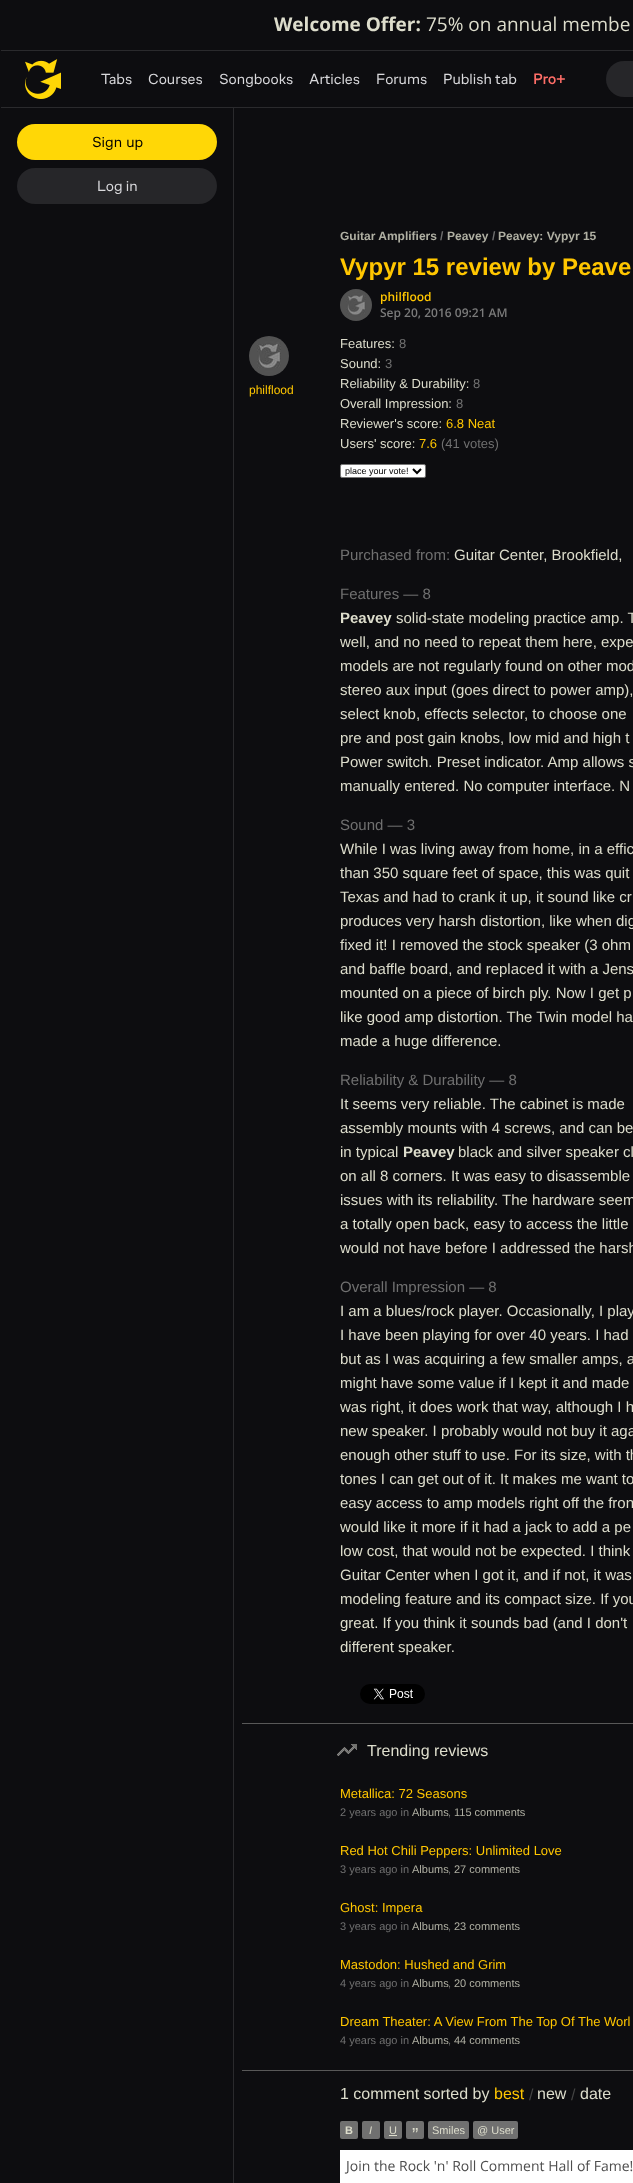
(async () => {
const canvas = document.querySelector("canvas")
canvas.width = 633
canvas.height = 2183
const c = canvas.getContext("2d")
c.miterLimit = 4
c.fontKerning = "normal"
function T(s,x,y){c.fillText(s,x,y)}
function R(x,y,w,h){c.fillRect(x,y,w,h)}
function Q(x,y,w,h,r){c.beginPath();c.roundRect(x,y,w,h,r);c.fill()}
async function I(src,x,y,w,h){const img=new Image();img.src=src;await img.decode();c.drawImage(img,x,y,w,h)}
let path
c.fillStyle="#0d0d10"
R(0,0,633,2183)
c.fillStyle="#2a2a2d"
R(1,50,632,1)
c.font="bold 19px Open Sans"
c.fillStyle="#ddc"
T("Welcome Offer:",274,31)
c.font="19px Open Sans"
T("75% on annual membe",426,31)
c.fillStyle="#2a2a2d"
R(1,107,632,1)
await I("1.png",25,59,36,40)
c.font="15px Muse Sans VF"
c.fillStyle="#d9d9dc"
T("Tabs",101,84)
T("Courses",148,84)
T("Songbooks",219,84)
T("Articles",309,84)
T("Forums",376,84)
T("Publish tab",443,84)
c.font="bold 15px Muse Sans VF"
c.fillStyle="#ff6e68"
T("Pro+",533,84)
c.fillStyle="#262629"
Q(606,61,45,36,18)
c.fillStyle="#ffd706"
Q(17,124,200,36,18)
c.wordSpacing="1px"
c.font="15px Muse Sans VF"
c.fillStyle="#000"
T("Sign up",92,147)
c.fillStyle="#262629"
Q(17,168,200,36,18)
c.wordSpacing="0px"
c.fillStyle="#d9d9dc"
T("Log in",97,191)
c.fillStyle="#2a2a2d"
R(233,108,1,2075)
c.font="bold 12px Liberation Sans"
c.fillStyle="#b0b0a3"
T("Guitar Amplifiers",340,240)
c.fillStyle="#707070"
T("/",440,240)
c.fillStyle="#b0b0a3"
T("Peavey",447,240)
c.fillStyle="#707070"
T("/",492,240)
c.fillStyle="#b0b0a3"
T("Peavey: Vypyr 15",498,240)
c.font="bold 24px Liberation Sans"
c.fillStyle="#ffc600"
T("Vypyr 15 review by Peave",340,275)
await I("2.png",340,289,32,32)
c.font="600 12px Open Sans"
T("philflood",380,301)
c.fillStyle="#7a7a7a"
T("Sep 20, 2016 09:21 AM",380,317)
await I("3.png",249,336,40,40)
c.font="12px Liberation Sans"
c.fillStyle="#ffc600"
T("philflood",249,394)
c.font="13px Liberation Sans"
c.fillStyle="#ddc"
T("Features:",340,348)
c.fillStyle="#707070"
T("8",399,348)
c.fillStyle="#ddc"
T("Sound:",340,368)
c.fillStyle="#707070"
T("3",385,368)
c.fillStyle="#ddc"
T("Reliability & Durability:",340,388)
c.fillStyle="#707070"
T("8",473,388)
c.fillStyle="#ddc"
T("Overall Impression:",340,408)
c.fillStyle="#707070"
T("8",456,408)
c.fillStyle="#ddc"
T("Reviewer's score:",340,428)
c.fillStyle="#ffc600"
T("6.8 Neat",446,428)
c.fillStyle="#ddc"
T("Users' score:",340,448)
c.fillStyle="#ffc600"
T("7.6",419,448)
c.fillStyle="#707070"
T("(41 votes)",441,448)
c.fillStyle="#fff"
c.beginPath()
c.roundRect(340.5,464.5,85,13,1.5)
c.fill()
c.strokeStyle="#767676"
c.stroke()
path = new Path2D("M413 469l4 4l4-4")
c.strokeStyle="#000"
c.lineWidth=2
c.stroke(path)
c.font="9px Liberation Sans"
c.fillStyle="#000"
T("place your vote!",345,474)
c.font="15px Liberation Sans"
c.fillStyle="#707070"
T("Purchased from:",340,560)
c.fillStyle="#ddc"
T("Guitar Center, Brookfield,",454,560)
c.fillStyle="#707070"
T("Features — 8",340,599)
c.font="bold 15px Liberation Sans"
c.fillStyle="#ddc"
T("Peavey",340,623)
c.font="15px Liberation Sans"
T("solid-state modeling practice amp. T",396,623)
T("well, and no need to repeat them here, expe",340,647)
T("models are not regularly found on other mod",340,671)
T("stereo aux input (goes direct to power amp),",340,695)
T("select knob, effects selector, to choose one",340,719)
T("pre and post gain knobs, low mid and high t",340,743)
T("Power switch. Preset indicator. Amp allows s",340,767)
T("manually entered. No computer interface. N",340,791)
c.fillStyle="#707070"
T("Sound — 3",340,830)
c.fillStyle="#ddc"
T("While I was living away from home, in a effic",340,854)
T("than 350 square feet of space, this was quit",340,878)
T("Texas and had to crank it up, it sound like cr",340,902)
T("produces very harsh distortion, like when dig",340,926)
T("fixed it! I removed the stock speaker (3 ohm",340,950)
T("and baffle board, and replaced it with a Jens",340,974)
T("mounted on a piece of birch ply. Now I get p",340,998)
T("like good amp distortion. The Twin model ha",340,1022)
T("made a huge difference.",340,1046)
c.fillStyle="#707070"
T("Reliability & Durability — 8",340,1085)
c.fillStyle="#ddc"
T("It seems very reliable. The cabinet is made",340,1109)
T("assembly mounts with 4 screws, and can be",340,1133)
T("in typical",340,1157)
c.font="bold 15px Liberation Sans"
T("Peavey",403,1157)
c.font="15px Liberation Sans"
T("black and silver speaker cl",458,1157)
T("on all 8 corners. It was easy to disassemble",340,1181)
T("issues with its reliability. The hardware seem",340,1205)
T("a totally open back, easy to access the little",340,1229)
T("would not have before I addressed the harsh",340,1253)
c.fillStyle="#707070"
T("Overall Impression — 8",340,1292)
c.fillStyle="#ddc"
T("I am a blues/rock player. Occasionally, I play",340,1316)
T("I have been playing for over 40 years. I had",340,1340)
T("but as I was acquiring a few smaller amps, a",340,1364)
T("might have some value if I kept it and made",340,1388)
T("was right, it does work that way, although I h",340,1412)
T("new speaker. I probably would not buy it aga",340,1436)
T("enough other stuff to use. For its size, with th",340,1460)
T("tones I can get out of it. It makes me want to",340,1484)
T("easy access to amp models right off the fron",340,1508)
T("would like it more if it had a jack to add a pe",340,1532)
T("low cost, that would not be expected. I think",340,1556)
T("Guitar Center when I got it, and if not, it was",340,1580)
T("modeling feature and its compact size. If you",340,1604)
T("great. If you think it sounds bad (and I don't",340,1628)
T("different speaker.",340,1652)
await I("4.png",360,1684,65,20)
c.fillStyle="#585858"
R(242,1723,391,1)
R(242,2070,391,1)
await I("5.png",337,1744,20,12)
c.font="16px Liberation Sans"
c.fillStyle="#ddc"
T("Trending reviews",367,1756)
c.font="13px Liberation Sans"
c.fillStyle="#ffc600"
T("Metallica: 72 Seasons",340,1798)
c.font="11px Liberation Sans"
c.fillStyle="#707070"
T("2 years ago in",340,1816)
c.fillStyle="#b0b0a3"
T("Albums",412,1816)
c.fillStyle="#707070"
T(",",448,1816)
c.fillStyle="#b0b0a3"
T("115 comments",454,1816)
c.font="13px Liberation Sans"
c.fillStyle="#ffc600"
T("Red Hot Chili Peppers: Unlimited Love",340,1855)
c.font="11px Liberation Sans"
c.fillStyle="#707070"
T("3 years ago in",340,1873)
c.fillStyle="#b0b0a3"
T("Albums",412,1873)
c.fillStyle="#707070"
T(",",448,1873)
c.fillStyle="#b0b0a3"
T("27 comments",454,1873)
c.font="13px Liberation Sans"
c.fillStyle="#ffc600"
T("Ghost: Impera",340,1912)
c.font="11px Liberation Sans"
c.fillStyle="#707070"
T("3 years ago in",340,1930)
c.fillStyle="#b0b0a3"
T("Albums",412,1930)
c.fillStyle="#707070"
T(",",448,1930)
c.fillStyle="#b0b0a3"
T("23 comments",454,1930)
c.font="13px Liberation Sans"
c.fillStyle="#ffc600"
T("Mastodon: Hushed and Grim",340,1969)
c.font="11px Liberation Sans"
c.fillStyle="#707070"
T("4 years ago in",340,1987)
c.fillStyle="#b0b0a3"
T("Albums",412,1987)
c.fillStyle="#707070"
T(",",448,1987)
c.fillStyle="#b0b0a3"
T("20 comments",454,1987)
c.font="13px Liberation Sans"
c.fillStyle="#ffc600"
T("Dream Theater: A View From The Top Of The Worl",340,2026)
c.font="11px Liberation Sans"
c.fillStyle="#707070"
T("4 years ago in",340,2044)
c.fillStyle="#b0b0a3"
T("Albums",412,2044)
c.fillStyle="#707070"
T(",",448,2044)
c.fillStyle="#b0b0a3"
T("44 comments",454,2044)
c.font="16px Liberation Sans"
c.fillStyle="#ddc"
T("1 comment sorted by",340,2099)
c.fillStyle="#ffc600"
T("best",494,2099)
c.fillStyle="#444"
T("/",529,2100)
c.fillStyle="#ddc"
T("new",537,2099)
c.fillStyle="#444"
T("/",571,2100)
c.fillStyle="#ddc"
T("date",580,2099)
c.fillStyle="#707070"
Q(340,2121,18,18,2)
c.font="bold 11px Liberation Sans"
c.fillStyle="#ddc"
T("B",345,2134)
c.fillStyle="#707070"
Q(362,2121,18,18,2)
c.font="italic 11px Liberation Sans"
c.fillStyle="#ddc"
T("I",369,2134)
c.fillStyle="#707070"
Q(384,2121,18,18,2)
c.font="11px Liberation Sans"
c.fillStyle="#ddc"
T("U",389,2134)
R(389,2135,8,1)
c.fillStyle="#707070"
Q(406,2121,18,18,2)
c.font="19px Liberation Sans"
c.fillStyle="#ddc"
T("”",412,2141)
c.fillStyle="#707070"
Q(428,2121,41,18,2)
c.font="11px Liberation Sans"
c.fillStyle="#ddc"
T("Smiles",432,2134)
c.fillStyle="#707070"
Q(473,2121,45,18,2)
c.fillStyle="#ddc"
T("@ User",477,2134)
c.fillStyle="#fff"
R(340,2150,293,33)
c.font="14px Open Sans"
c.fillStyle="#4d4d4d"
T("Join the Rock 'n' Roll Comment Hall of Fame!",346,2171)
})()
